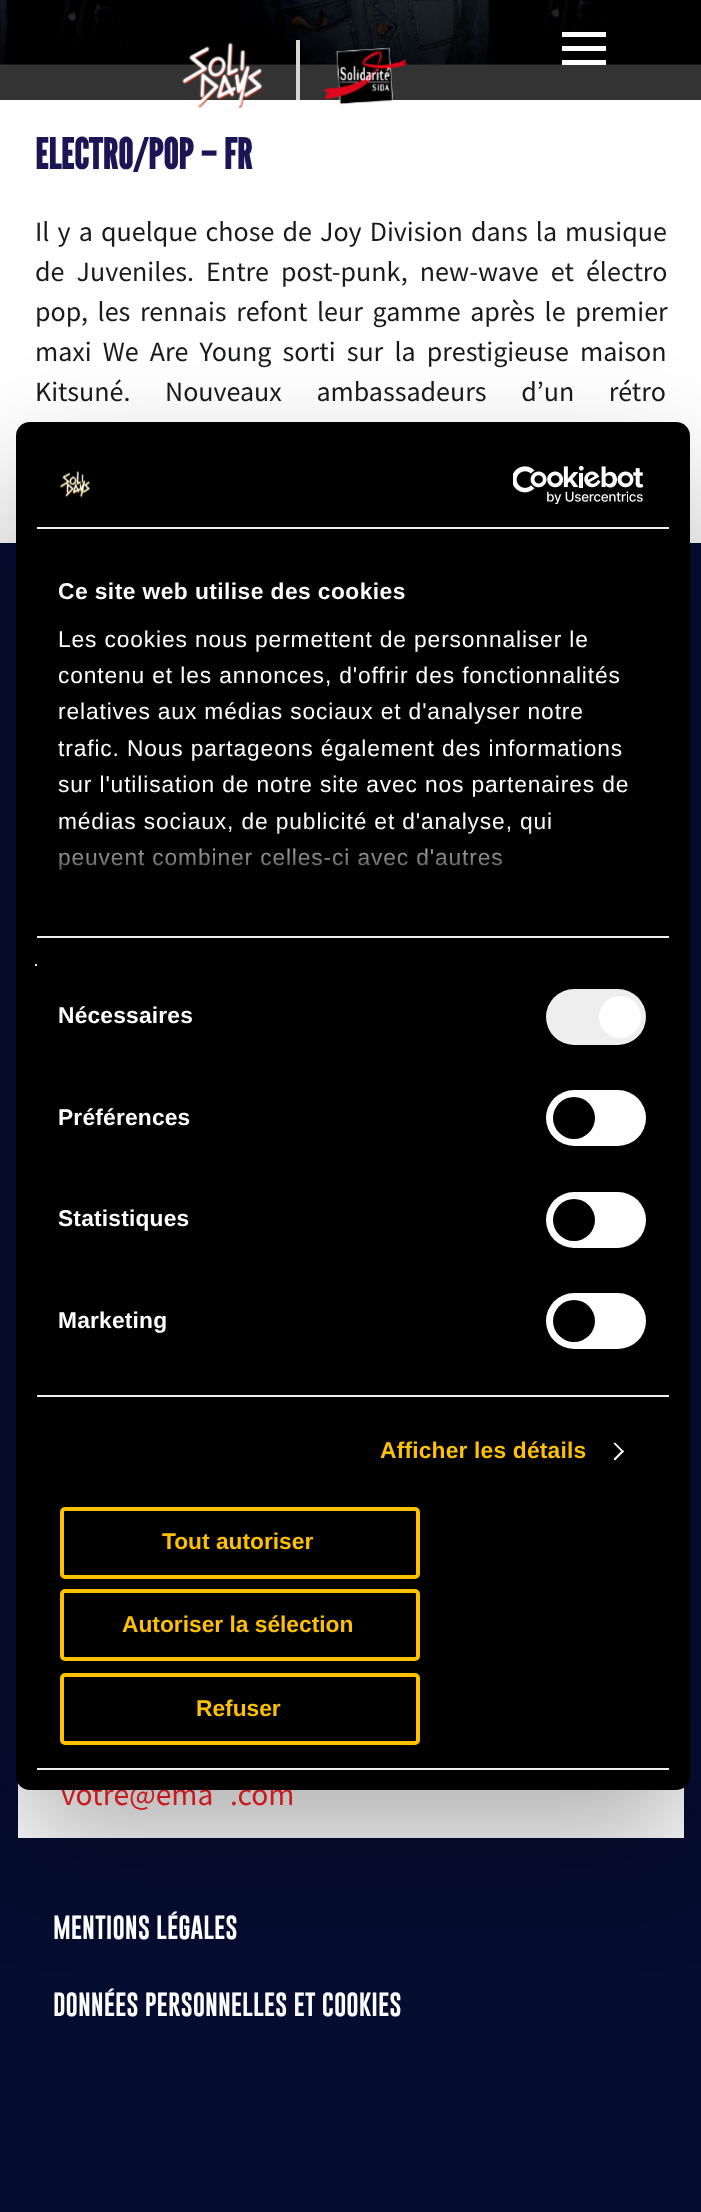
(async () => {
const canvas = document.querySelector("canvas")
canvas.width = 701
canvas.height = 2212
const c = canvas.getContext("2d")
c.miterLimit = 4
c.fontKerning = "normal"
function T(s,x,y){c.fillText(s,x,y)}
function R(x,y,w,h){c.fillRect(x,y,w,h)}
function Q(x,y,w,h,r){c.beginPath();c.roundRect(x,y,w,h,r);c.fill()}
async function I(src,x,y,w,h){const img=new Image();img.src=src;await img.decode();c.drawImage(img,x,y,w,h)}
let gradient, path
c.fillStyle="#fff"
R(0,0,701,2212)
c.fillStyle="#333"
R(0,64,701,36)
await I("3.png",0,0,701,65)
c.fillStyle="#d6d6d6"
R(296,40,4,60)
await I("1.png",182,42,81,67)
await I("2.png",322,47,87,58)
c.fillStyle="#fff"
R(562,46,44,5)
R(562,32,44,5)
R(562,60,44,5)
c.letterSpacing="0.3px"
c.font="bold 42px League Gothic"
c.fillStyle="#1d1456"
T("ELECTRO/POP – FR",35,169)
c.letterSpacing="0px"
c.wordSpacing="2.5px"
c.font="28px Source Sans Pro"
c.fillStyle="#191a1c"
T("Il y a quelque chose de Joy Division dans la musique",35,241)
c.wordSpacing="6.5px"
T("de Juveniles. Entre post-punk, new-wave et électro",35,281)
c.wordSpacing="4px"
T("pop, les rennais refont leur gamme après le premier",35,321)
c.wordSpacing="5.5px"
T("maxi We Are Young sorti sur la prestigieuse maison",35,361)
c.wordSpacing="29px"
T("Kitsuné. Nouveaux ambassadeurs d’un rétro",35,401)
gradient = c.createLinearGradient(351,-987,351,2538)
gradient.addColorStop(0,"#000")
gradient.addColorStop(.4,"#050d30")
gradient.addColorStop(.6,"#050d30")
c.fillStyle = gradient
R(0,543,701,1669)
c.fillStyle="#fff"
R(18,1783,666,55)
c.fillStyle="#0000004d"
c.filter="blur(59.5px)"
c.beginPath()
c.roundRect(16,478,674,1368,14)
c.fill()
c.filter="none"
c.wordSpacing="0px"
c.font="31.5px Source Sans Pro"
c.fillStyle="#c9191c"
T("votre@ema",61,1805)
T(".com",230,1805)
c.fillStyle="#000"
Q(16,422,674,1368,14)
c.fillStyle="#eee"
R(37,527,632,2)
await I("4.png",59,471,31,27)
await I("5.png",513,466,131,38)
R(37,936,632,2)
c.letterSpacing="0.45px"
c.font="bold 22.75px Liberation Sans"
c.fillStyle="#fff"
T("Ce site web utilise des cookies",58,599)
c.letterSpacing="0.88px"
c.font="22.75px Liberation Sans"
T("Les cookies nous permettent de personnaliser le",58,647)
T("contenu et les annonces, d'offrir des fonctionnalités",58,683)
T("relatives aux médias sociaux et d'analyser notre",58,719)
T("trafic. Nous partageons également des informations",58,756)
T("sur l'utilisation de notre site avec nos partenaires de",58,792)
T("médias sociaux, de publicité et d'analyse, qui",58,829)
T("peuvent combiner celles-ci avec d'autres",58,865)
gradient = c.createLinearGradient(342,937,342,823)
gradient.addColorStop(0,"#000")
gradient.addColorStop(.5,"#000000cc")
gradient.addColorStop(1,"#00000000")
c.fillStyle = gradient
R(59,825,492,45)
c.fillStyle="#eee"
R(37,1395,632,2)
c.fillStyle="#e5e5e5"
R(35,964,2,2)
c.letterSpacing="0.2px"
c.font="bold 22.75px Liberation Sans"
c.fillStyle="#fff"
T("Nécessaires",58,1023)
c.fillStyle="#eee"
Q(546,989,100,56,28)
c.fillStyle="#fff"
c.beginPath()
c.arc(620,1017,21,0,7)
c.fill()
T("Préférences",58,1125)
Q(546,1090,100,56,28)
c.fillStyle="#000"
c.beginPath()
c.arc(574,1118,21,0,7)
c.fill()
c.fillStyle="#fff"
T("Statistiques",58,1226)
Q(546,1192,100,56,28)
c.fillStyle="#000"
c.beginPath()
c.arc(574,1220,21,0,7)
c.fill()
c.fillStyle="#fff"
T("Marketing",58,1328)
Q(546,1293,100,56,28)
c.fillStyle="#000"
c.beginPath()
c.arc(574,1321,21,0,7)
c.fill()
c.fillStyle="#fdc100"
T("Afficher les détails",380,1458)
c.fillStyle="#fff"
path = new Path2D("M615 1442.5l9 9l-1.5 1l-9-9z")
c.fill(path)
path = new Path2D("M622.5 1450l1.5 1.5l-9 9l-1.5-1.5z")
c.fill(path)
c.fillStyle="#eee"
R(37,1768,632,2)
c.beginPath()
c.roundRect(62,1509,356,68,3)
c.strokeStyle="#fdc100"
c.lineWidth=4
c.stroke()
c.letterSpacing="0px"
c.fillStyle="#fdc100"
T("Tout autoriser",162,1549)
c.beginPath()
c.roundRect(62,1591,356,68,3)
c.stroke()
T("Autoriser la sélection",122,1632)
c.beginPath()
c.roundRect(62,1675,356,68,3)
c.stroke()
T("Refuser",196,1716)
c.font="bold 24.5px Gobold"
c.fillStyle="#fff"
T("MENTIONS LÉGALES",53,1939)
T("DONNÉES PERSONNELLES ET COOKIES",53,2016)
})()
